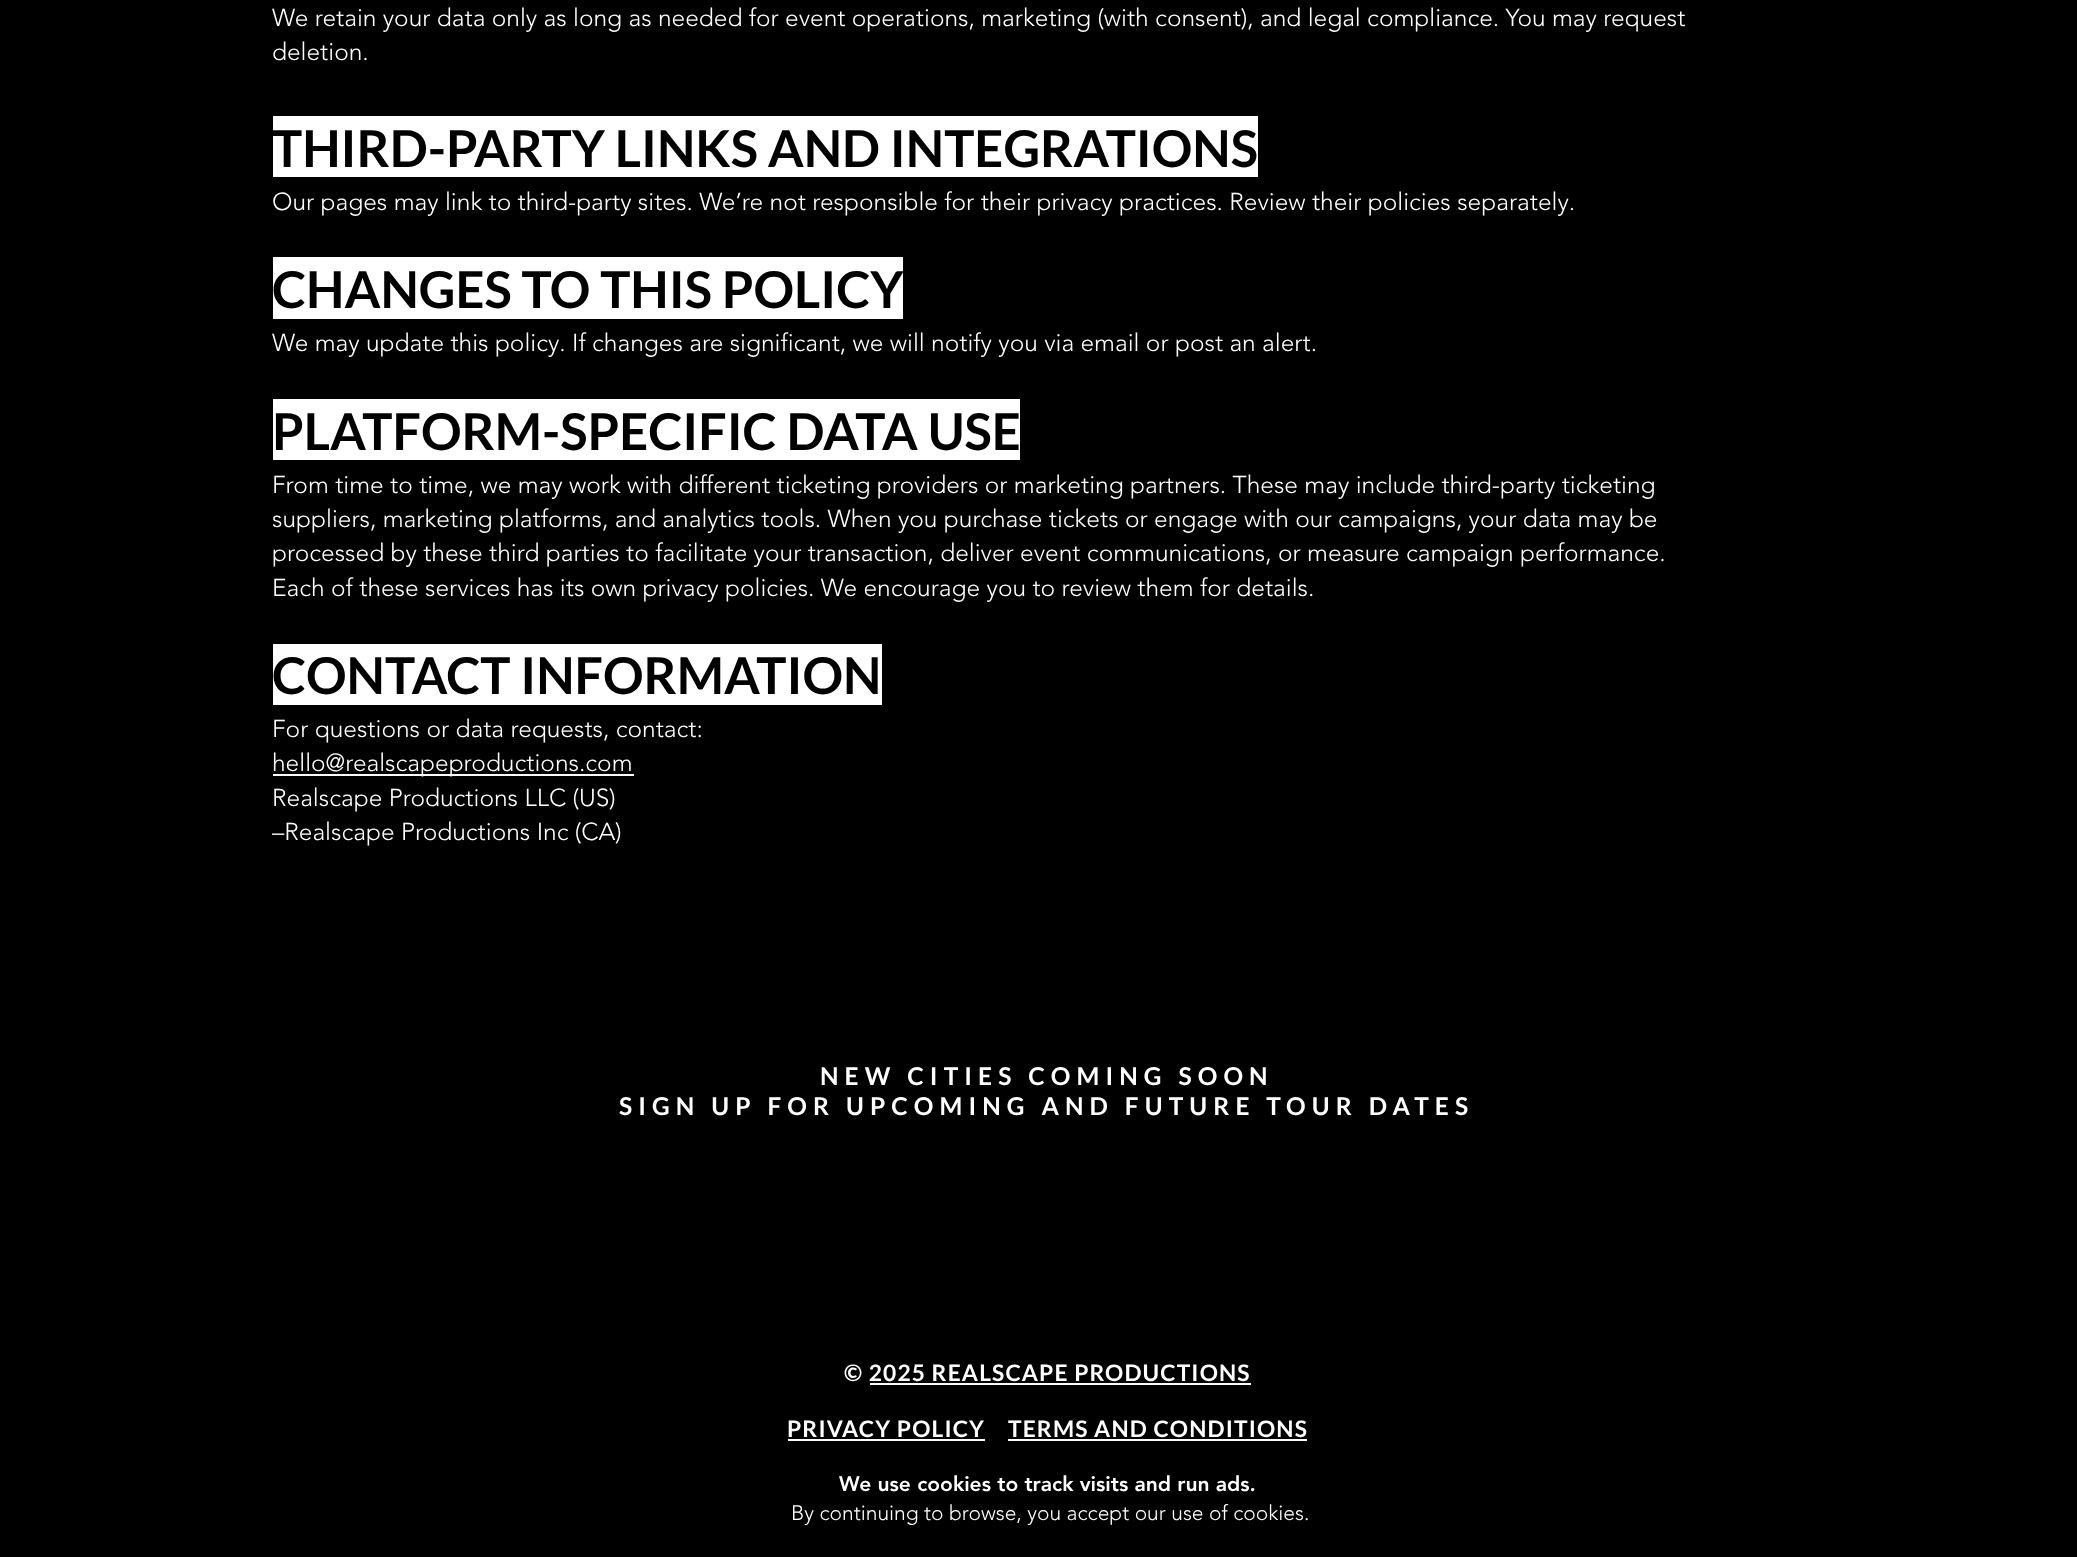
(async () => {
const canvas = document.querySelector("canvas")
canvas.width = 2077
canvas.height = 1557
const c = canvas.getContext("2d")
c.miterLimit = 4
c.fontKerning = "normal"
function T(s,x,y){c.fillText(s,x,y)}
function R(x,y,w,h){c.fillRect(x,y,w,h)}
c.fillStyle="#000"
R(0,0,2077,1557)
c.font="300 24.5px 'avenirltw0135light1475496'"
c.fillStyle="#fff"
T("We retain your data only as long as needed for event operations, marketing (with consent), and legal compliance. You may request",272,26)
T("deletion.",272,60)
R(273,116,985,61)
c.font="bold 50.75px Lato"
c.fillStyle="#000"
T("THIRD-PARTY LINKS AND INTEGRATIONS",272,167)
c.font="300 24.5px 'avenirltw0135light1475496'"
c.fillStyle="#fff"
T("Our pages may link to third-party sites. We’re not responsible for their privacy practices. Review their policies separately.",272,210)
R(273,257,630,62)
c.font="bold 50.75px Lato"
c.fillStyle="#000"
T("CHANGES TO THIS POLICY",272,308)
c.font="300 24.5px 'avenirltw0135light1475496'"
c.fillStyle="#fff"
T("We may update this policy. If changes are significant, we will notify you via email or post an alert.",272,351)
R(273,399,747,61)
c.font="bold 50.75px Lato"
c.fillStyle="#000"
T("PLATFORM-SPECIFIC DATA USE",272,450)
c.font="300 24.5px 'avenirltw0135light1475496'"
c.fillStyle="#fff"
T("From time to time, we may work with different ticketing providers or marketing partners. These may include third-party ticketing",272,493)
T("suppliers, marketing platforms, and analytics tools. When you purchase tickets or engage with our campaigns, your data may be",272,527)
T("processed by these third parties to facilitate your transaction, deliver event communications, or measure campaign performance.",272,561)
T("Each of these services has its own privacy policies. We encourage you to review them for details.",272,596)
R(273,644,609,61)
c.font="bold 50.75px Lato"
c.fillStyle="#000"
T("CONTACT INFORMATION",272,694)
c.font="300 24.5px 'avenirltw0135light1475496'"
c.fillStyle="#fff"
T("For questions or data requests, contact:",272,737)
R(273,774,361,2)
T("hello@realscapeproductions.com",272,771)
T("Realscape Productions LLC (US)",272,806)
T("–Realscape Productions Inc (CA)",272,840)
c.letterSpacing="6.1px"
c.font="bold 24.5px 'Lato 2'"
T("NEW CITIES COMING SOON",820,1085)
T("SIGN UP FOR UPCOMING AND FUTURE TOUR DATES",619,1115)
c.letterSpacing="1.15px"
c.font="bold 22.75px 'Lato 2'"
T("© 2025 REALSCAPE PRODUCTIONS",844,1381)
c.fillStyle="#fcfcfc"
R(870,1383,381,2)
c.fillStyle="#fff"
T("PRIVACY POLICY",787,1437)
c.fillStyle="#fcfcfc"
R(788,1439,197,2)
c.fillStyle="#fff"
T("TERMS AND CONDITIONS",1008,1437)
c.fillStyle="#fcfcfc"
R(1008,1439,299,2)
c.letterSpacing="0px"
c.font="900 21px 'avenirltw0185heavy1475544'"
c.fillStyle="#fff"
T("We use cookies to track visits and run ads.",839,1491)
c.font="300 21px 'avenirltw0135light1475496'"
T("By continuing to browse, you accept our use of cookies.",791,1520)
})()
